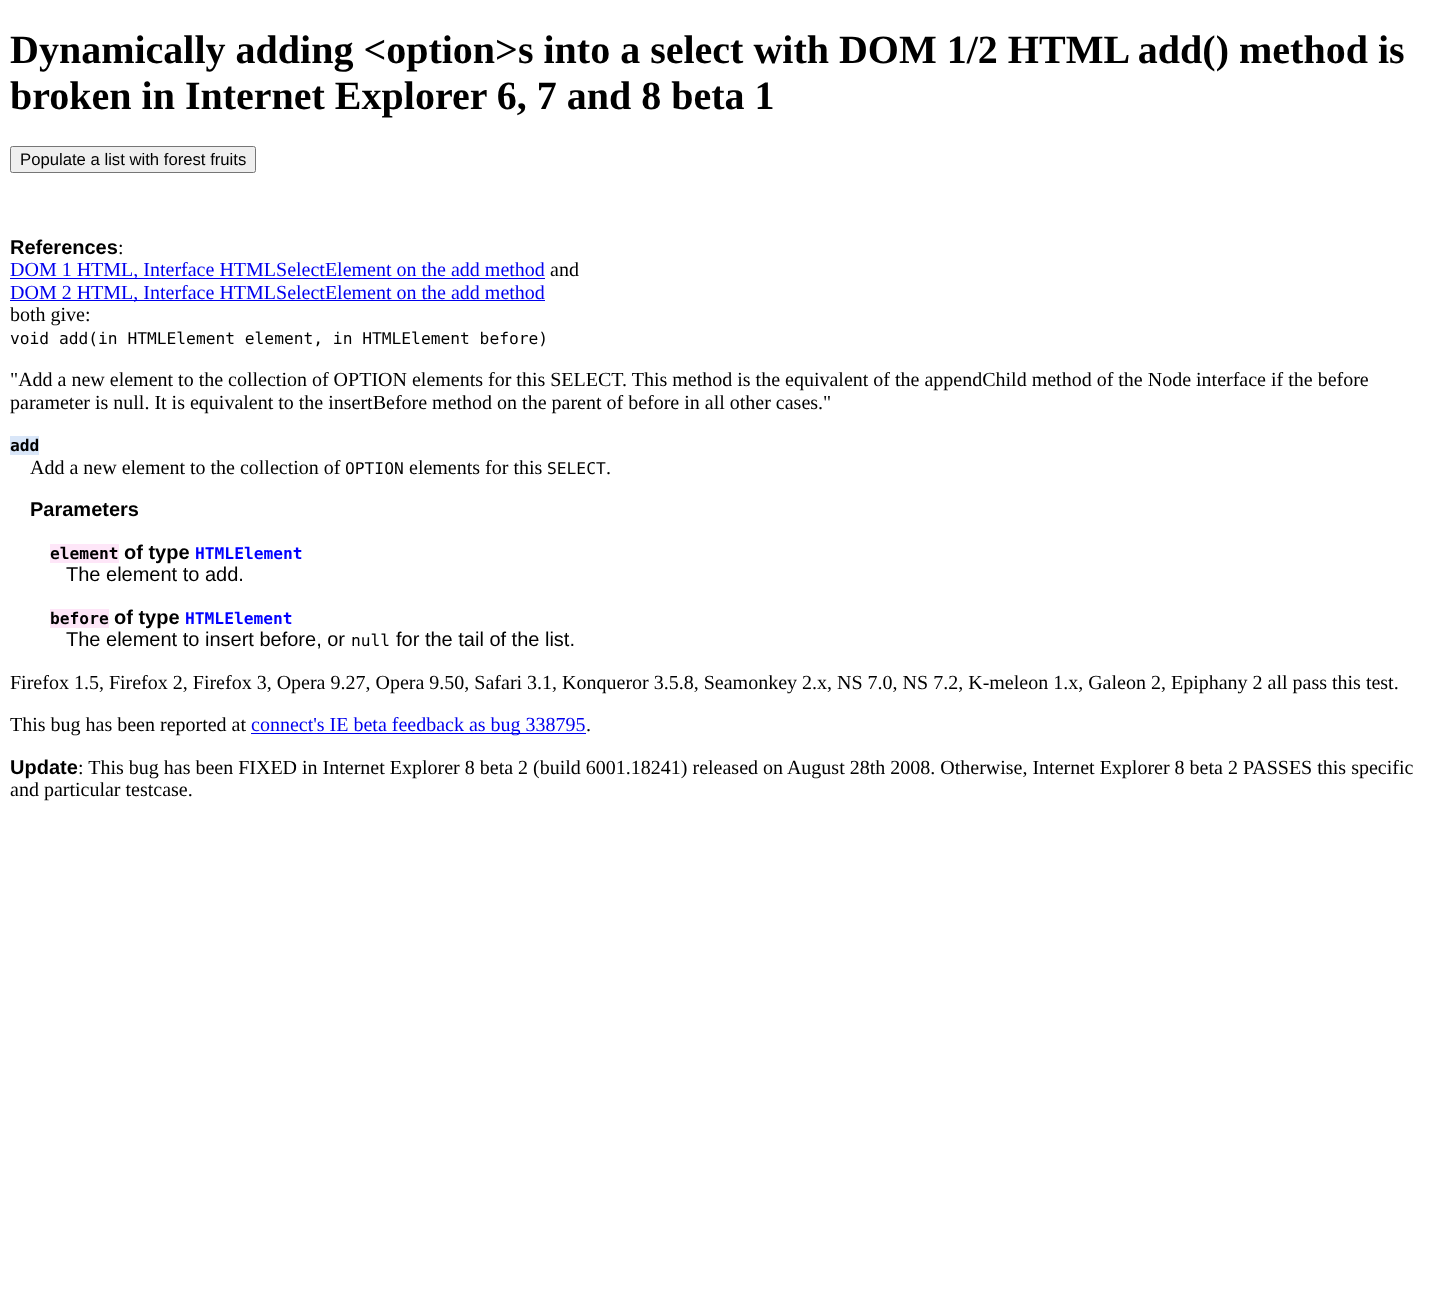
(async () => {
const canvas = document.querySelector("canvas")
canvas.width = 1438
canvas.height = 1310
const c = canvas.getContext("2d")
c.miterLimit = 4
c.fontKerning = "normal"
function T(s,x,y){c.fillText(s,x,y)}
function R(x,y,w,h){c.fillRect(x,y,w,h)}
c.fillStyle="#fff"
R(0,0,1438,1310)
c.font="bold 40px Liberation Serif"
c.fillStyle="#000"
T("Dynamically adding <option>s into a select with DOM 1/2 HTML add() method is",10,63)
T("broken in Internet Explorer 6, 7 and 8 beta 1",10,109)
c.fillStyle="#efefef"
c.beginPath()
c.roundRect(10.5,146.5,245,26,2)
c.fill()
c.strokeStyle="#767676"
c.stroke()
c.font="16.7px Liberation Sans"
c.fillStyle="#000"
T("Populate a list with forest fruits",20,165)
c.font="bold 20px Liberation Sans"
T("References",10,254)
c.font="20px Liberation Serif"
T(":",118,254)
c.fillStyle="#00e"
R(10,278,535,1)
T("DOM 1 HTML, Interface HTMLSelectElement on the add method",10,276)
c.fillStyle="#000"
T("and",550,276)
c.fillStyle="#00e"
R(10,300,535,1)
T("DOM 2 HTML, Interface HTMLSelectElement on the add method",10,299)
c.fillStyle="#000"
T("both give:",10,321)
c.font="16.25px DejaVu Sans Mono"
T("void add(in HTMLElement element, in HTMLElement before)",10,344)
c.font="20px Liberation Serif"
T("\"Add a new element to the collection of OPTION elements for this SELECT. This method is the equivalent of the appendChild method of the Node interface if the before",10,386)
T("parameter is null. It is equivalent to the insertBefore method on the parent of before in all other cases.\"",10,409)
c.fillStyle="#d9e6f8"
R(10,436,29,19)
c.font="bold 16.25px DejaVu Sans Mono"
c.fillStyle="#000"
T("add",10,451)
c.font="20px Liberation Serif"
T("Add a new element to the collection of",30,474)
c.font="16.25px DejaVu Sans Mono"
T("OPTION",345,474)
c.font="20px Liberation Serif"
T("elements for this",409,474)
c.font="16.25px DejaVu Sans Mono"
T("SELECT",547,474)
c.font="20px Liberation Serif"
T(".",606,474)
c.font="bold 20px Liberation Sans"
T("Parameters",30,516)
c.fillStyle="#fee6f8"
R(50,544,69,19)
c.font="bold 16.25px DejaVu Sans Mono"
c.fillStyle="#000"
T("element",50,559)
c.font="bold 20px Liberation Sans"
T("of type",124,559)
c.font="bold 16.25px DejaVu Sans Mono"
c.fillStyle="#00f"
T("HTMLElement",195,559)
c.font="20px Liberation Sans"
c.fillStyle="#000"
T("The element to add.",66,581)
c.fillStyle="#fee6f8"
R(50,609,59,19)
c.font="bold 16.25px DejaVu Sans Mono"
c.fillStyle="#000"
T("before",50,624)
c.font="bold 20px Liberation Sans"
T("of type",114,624)
c.font="bold 16.25px DejaVu Sans Mono"
c.fillStyle="#00f"
T("HTMLElement",185,624)
c.font="20px Liberation Sans"
c.fillStyle="#000"
T("The element to insert before, or",66,646)
c.font="16.25px DejaVu Sans Mono"
T("null",351,646)
c.font="20px Liberation Sans"
T("for the tail of the list.",396,646)
c.font="20px Liberation Serif"
T("Firefox 1.5, Firefox 2, Firefox 3, Opera 9.27, Opera 9.50, Safari 3.1, Konqueror 3.5.8, Seamonkey 2.x, NS 7.0, NS 7.2, K-meleon 1.x, Galeon 2, Epiphany 2 all pass this test.",10,689)
T("This bug has been reported at",10,731)
c.fillStyle="#00e"
R(251,733,335,1)
T("connect's IE beta feedback as bug 338795",251,731)
c.fillStyle="#000"
T(".",586,731)
c.font="bold 20px Liberation Sans"
T("Update",10,774)
c.font="20px Liberation Serif"
T(": This bug has been FIXED in Internet Explorer 8 beta 2 (build 6001.18241) released on August 28th 2008. Otherwise, Internet Explorer 8 beta 2 PASSES this specific",78,774)
T("and particular testcase.",10,796)
})()
